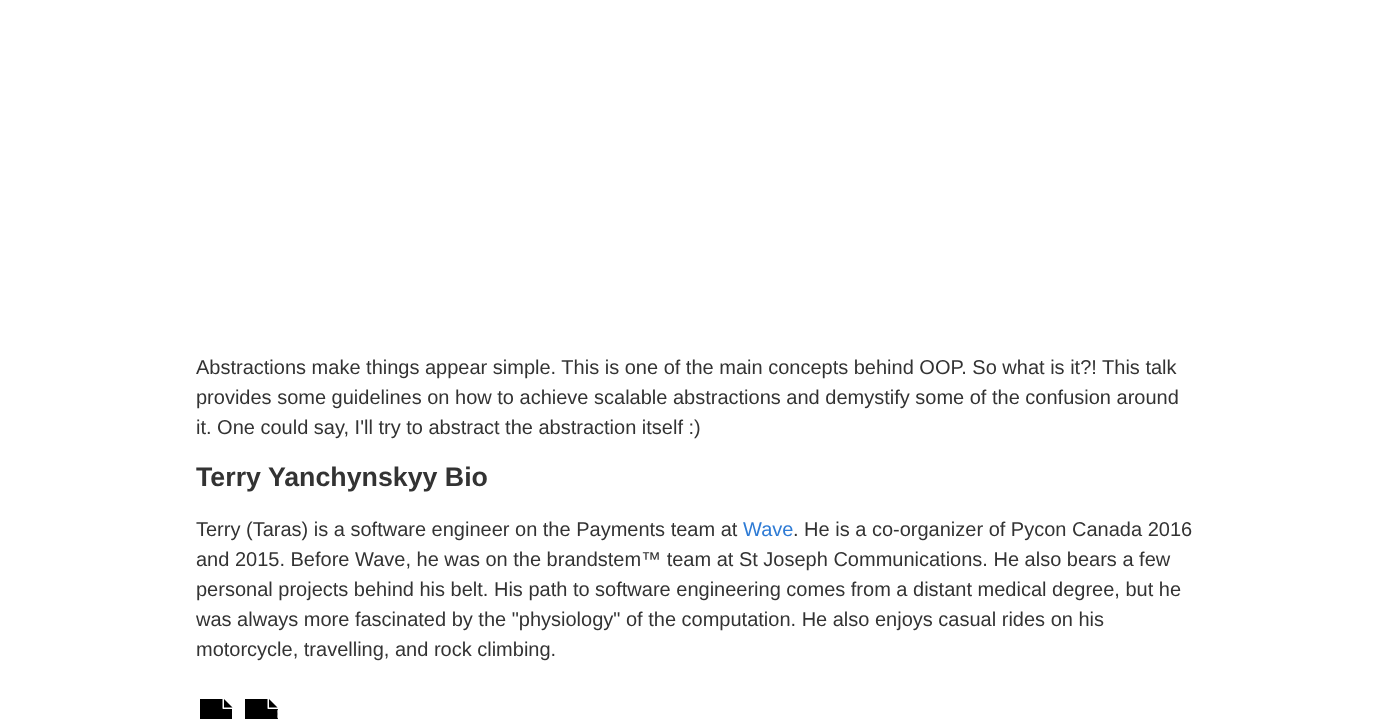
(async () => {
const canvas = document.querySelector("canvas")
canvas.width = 1391
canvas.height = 719
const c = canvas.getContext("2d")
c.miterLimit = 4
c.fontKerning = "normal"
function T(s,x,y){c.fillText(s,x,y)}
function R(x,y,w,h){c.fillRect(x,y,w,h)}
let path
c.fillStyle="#fff"
R(0,0,1391,719)
c.font="20px Liberation Sans"
c.fillStyle="#333"
T("Abstractions make things appear simple. This is one of the main concepts behind OOP. So what is it?! This talk",196,374)
T("provides some guidelines on how to achieve scalable abstractions and demystify some of the confusion around",196,404)
T("it. One could say, I'll try to abstract the abstraction itself :)",196,434)
c.font="bold 26.75px Liberation Sans"
T("Terry Yanchynskyy Bio",196,486)
c.font="20px Liberation Sans"
T("Terry (Taras) is a software engineer on the Payments team at",196,536)
c.fillStyle="#2e7bd5"
T("Wave",743,536)
c.fillStyle="#333"
T(". He is a co-organizer of Pycon Canada 2016",793,536)
T("and 2015. Before Wave, he was on the brandstem™ team at St Joseph Communications. He also bears a few",196,566)
T("personal projects behind his belt. His path to software engineering comes from a distant medical degree, but he",196,596)
T("was always more fascinated by the \"physiology\" of the computation. He also enjoys casual rides on his",196,626)
T("motorcycle, travelling, and rock climbing.",196,656)
c.fillStyle="#000"
path = new Path2D("M222.5 699h-22.5v20h32v-10h-9l-.5-.5zm9.5 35h-32v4.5l.5 .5h31.5z")
c.fill(path,"evenodd")
path = new Path2D("M232.5 707.5h-8.5v-8.5z")
c.fill(path)
path = new Path2D("M267.5 699h-22.5v20h33v-.5c-1-.5-.5-3.5-.5-4.5c0-1.5-.5-4 .5-4.5v-.5h-10l-.5-.5zm10.5 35h-33c0 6-1.5 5 5.5 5l27-.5c1 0-1-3.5 .5-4.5z")
c.fill(path,"evenodd")
path = new Path2D("M277.5 707.5h-8.5v-8.5z")
c.fill(path)
})()
